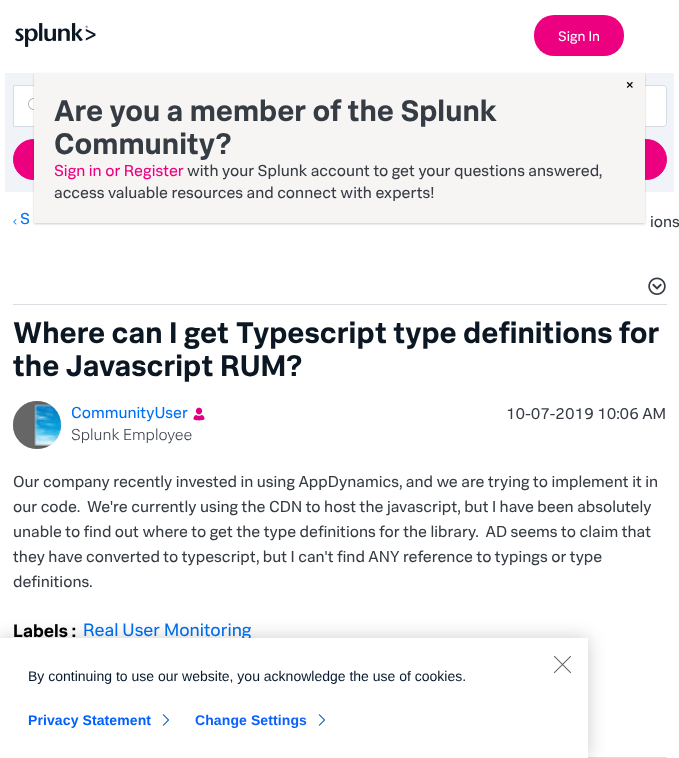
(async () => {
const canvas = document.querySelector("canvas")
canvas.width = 679
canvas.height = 758
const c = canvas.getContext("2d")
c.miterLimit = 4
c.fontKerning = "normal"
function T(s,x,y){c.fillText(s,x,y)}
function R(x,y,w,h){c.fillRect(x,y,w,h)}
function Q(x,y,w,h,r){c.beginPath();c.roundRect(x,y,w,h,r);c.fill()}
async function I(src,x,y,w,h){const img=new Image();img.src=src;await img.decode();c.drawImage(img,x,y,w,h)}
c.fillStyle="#fff"
R(0,0,679,758)
await I("1.png",15,23,81,24)
c.fillStyle="#ed0080"
Q(534,15,90,41,20)
c.font="14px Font"
c.fillStyle="#fff"
T("Sign In",558,41)
c.fillStyle="#f0f3f7"
R(5,73,669,119)
c.fillStyle="#fff"
c.beginPath()
c.roundRect(13.5,85.5,653,41,[0,3.5,3.5,0])
c.fill()
c.strokeStyle="#d5dce5"
c.stroke()
await I("2.png",28,98,6,12)
c.fillStyle="#ed0080"
c.beginPath()
c.roundRect(13.5,139.5,653,40,20)
c.fill()
c.strokeStyle="#ed0080"
c.stroke()
c.fillStyle="#00000033"
c.filter="blur(1px)"
c.beginPath()
c.rect(34,74,611,150)
c.fill()
c.filter="none"
c.fillStyle="#f7f4f4"
R(34,73,611,150)
c.font="16px Font"
c.fillStyle="#000"
T("×",625,90)
c.font="bold 30px Font"
c.fillStyle="#363c44"
T("Are you a member of the Splunk",54,121)
T("Community?",54,154)
c.font="16px Font"
c.fillStyle="#ed0080"
T("Sign in or Register",54,176)
c.fillStyle="#363c44"
T("with your Splunk account to get your questions answered,",187,176)
T("access valuable resources and connect with experts!",54,198)
await I("3.png",13,219,4,6)
c.fillStyle="#0070f3"
T("S",20,224)
c.fillStyle="#363c44"
T("ions",650,227)
c.fillStyle="#dadde1"
R(13,304,654,1)
await I("4.png",648,277,18,18)
c.font="bold 30px Font"
c.fillStyle="#0c1724"
T("Where can I get Typescript type definitions for",13,343)
T("the Javascript RUM?",13,376)
c.fillStyle="#999"
c.filter="blur(0.5px)"
c.beginPath()
c.roundRect(13,401,48,48,24)
c.fill()
c.filter="none"
await I("5.png",13,401,48,48)
c.font="16px Font"
c.fillStyle="#0070f3"
T("CommunityUser",71,418)
await I("6.png",193,407,12,14)
c.font="300 16px Font"
c.fillStyle="#363c44"
T("Splunk Employee",71,440)
c.font="16px Font"
T("10-07-2019 10:06 AM",506,419)
c.fillStyle="#dadde1"
R(588,757,79,1)
c.fillStyle="#363c44"
T("Our company recently invested in using AppDynamics, and we are trying to implement it in",13,487)
T("our code.  We're currently using the CDN to host the javascript, but I have been absolutely",13,512)
T("unable to find out where to get the type definitions for the library.  AD seems to claim that",13,537)
T("they have converted to typescript, but I can't find ANY reference to typings or type",13,562)
T("definitions.",13,587)
c.font="bold 18px Font"
c.fillStyle="#000"
T("Labels :",13,637)
c.font="18px Font"
c.fillStyle="#0070f3"
T("Real User Monitoring",83,636)
c.fillStyle="#00000033"
c.filter="blur(9px)"
c.beginPath()
c.rect(0,638,588,120)
c.fill()
c.filter="none"
c.fillStyle="#fff"
R(0,638,588,120)
await I("7.png",553,655,19,19)
c.font="14px Liberation Sans"
c.fillStyle="#07182d"
T("By continuing to use our website, you acknowledge the use of cookies.",28,681)
c.letterSpacing="0.1px"
c.font="bold 14px Liberation Sans"
c.fillStyle="#0060ff"
T("Privacy Statement",28,725)
await I("8.png",162,714,7,12)
c.fillStyle="#0a60ff"
T("Change Settings",195,725)
await I("8.png",318,714,7,12)
})()
